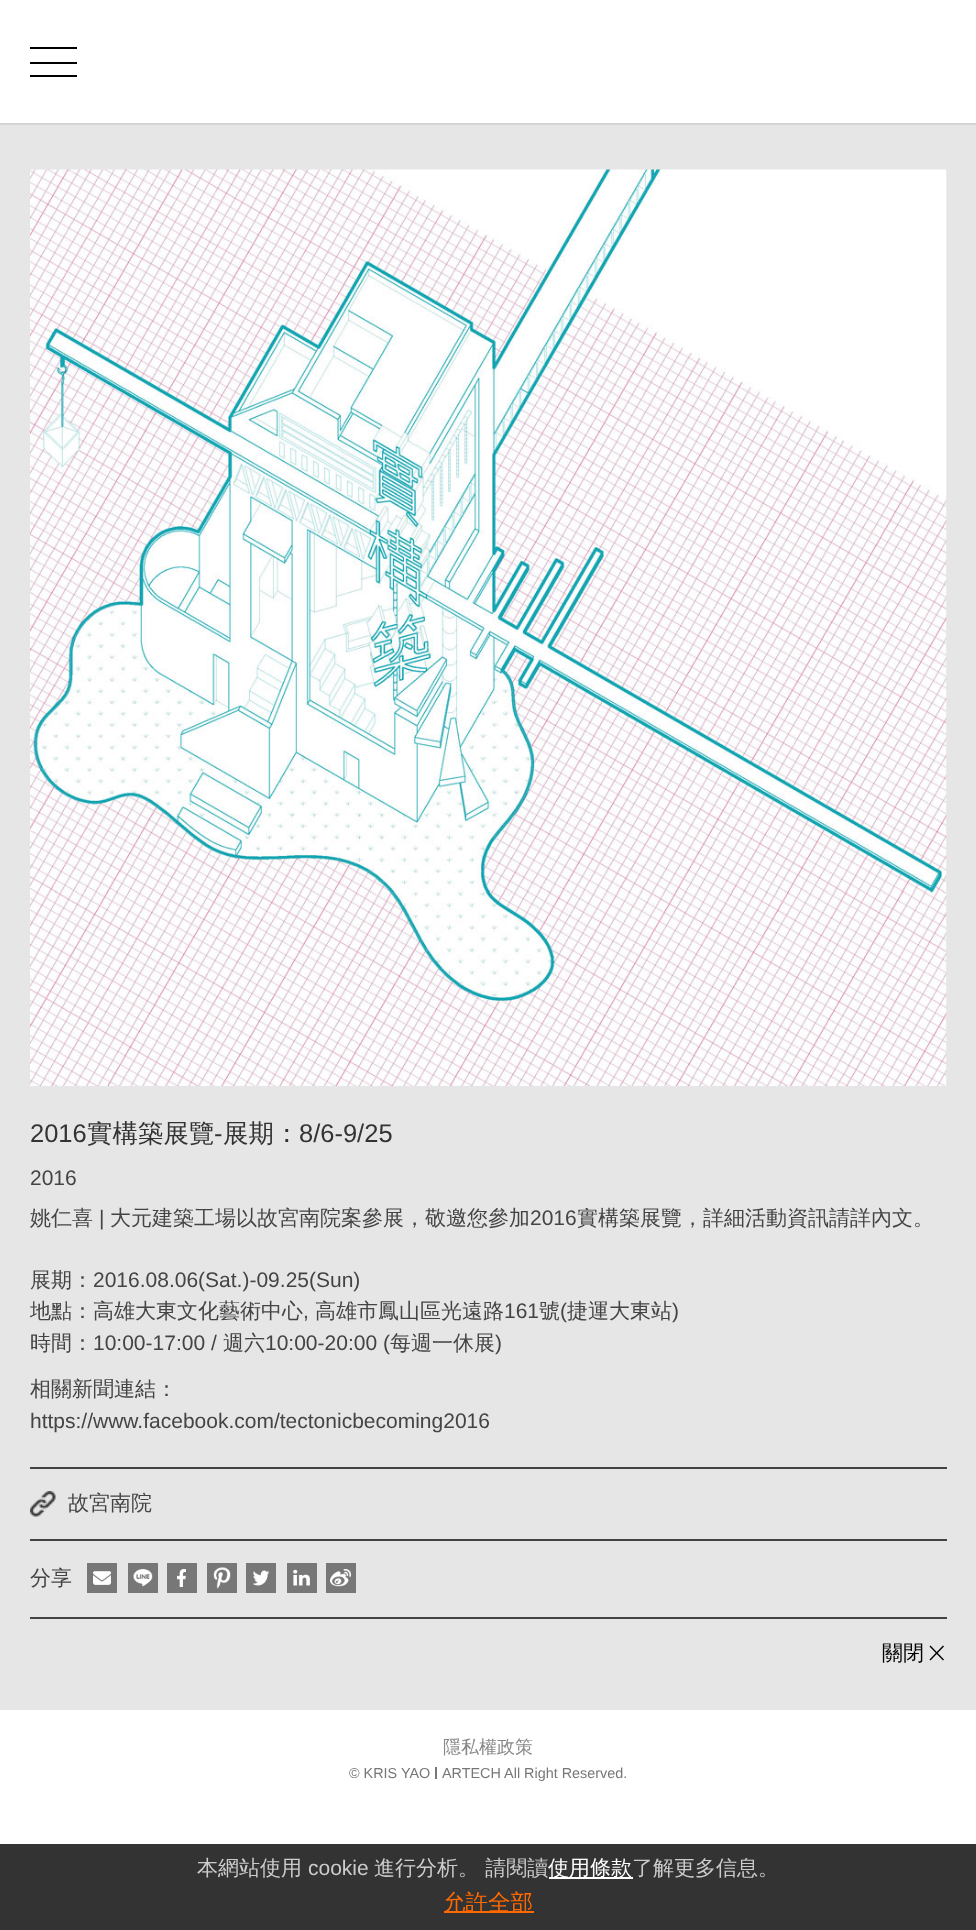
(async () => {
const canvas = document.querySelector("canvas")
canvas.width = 976
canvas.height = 1930
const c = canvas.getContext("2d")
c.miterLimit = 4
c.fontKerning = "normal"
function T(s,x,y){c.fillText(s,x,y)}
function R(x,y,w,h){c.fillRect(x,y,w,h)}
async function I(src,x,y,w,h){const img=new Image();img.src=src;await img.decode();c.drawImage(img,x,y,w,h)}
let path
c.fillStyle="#fff"
R(0,0,976,1930)
c.fillStyle="#d4d4d4"
R(0,123,976,2)
c.fillStyle="#000"
R(30,47,47,2)
R(30,62,47,2)
R(30,75,47,2)
c.fillStyle="#e6e6e6"
R(0,125,976,1585)
await I("1.png",30,169,917,917)
c.font="25.5px Liberation Sans"
c.fillStyle="#333"
T("2016",30,1142)
c.font="500 25.5px WenQuanYi Zen Hei"
T("實構築展覽",87,1142)
c.font="25.5px Liberation Sans"
T("-",214,1142)
c.font="500 25.5px WenQuanYi Zen Hei"
T("展期：",223,1142)
c.font="25.5px Liberation Sans"
T("8/6-9/25",299,1142)
c.font="21px Liberation Sans"
c.fillStyle="#444"
T("2016",30,1185)
c.font="500 21px WenQuanYi Zen Hei"
T("姚仁喜",30,1225)
c.font="21px Liberation Sans"
T("|",99,1225)
c.font="500 21px WenQuanYi Zen Hei"
T("大元建築工場以故宮南院案參展，敬邀您參加",110,1225)
c.font="21px Liberation Sans"
T("2016",530,1225)
c.font="500 21px WenQuanYi Zen Hei"
T("實構築展覽，詳細活動資訊請詳內文。",577,1225)
T("展期：",30,1287)
c.font="21px Liberation Sans"
T("2016.08.06(Sat.)-09.25(Sun)",93,1287)
c.font="500 21px WenQuanYi Zen Hei"
T("地點：高雄大東文化藝術中心",30,1318)
c.font="21px Liberation Sans"
T(",",303,1318)
c.font="500 21px WenQuanYi Zen Hei"
T("高雄市鳳山區光遠路",315,1318)
c.font="21px Liberation Sans"
T("161",504,1318)
c.font="500 21px WenQuanYi Zen Hei"
T("號",539,1318)
c.font="21px Liberation Sans"
T("(",560,1318)
c.font="500 21px WenQuanYi Zen Hei"
T("捷運大東站",567,1318)
c.font="21px Liberation Sans"
T(")",672,1318)
c.font="500 21px WenQuanYi Zen Hei"
T("時間：",30,1350)
c.font="21px Liberation Sans"
T("10:00-17:00 /",93,1350)
c.font="500 21px WenQuanYi Zen Hei"
T("週六",223,1350)
c.font="21px Liberation Sans"
T("10:00-20:00 (",265,1350)
c.font="500 21px WenQuanYi Zen Hei"
T("每週一休展",390,1350)
c.font="21px Liberation Sans"
T(")",495,1350)
c.font="500 21px WenQuanYi Zen Hei"
T("相關新聞連結：",30,1396)
c.font="21px Liberation Sans"
T("https://www.facebook.com/tectonicbecoming2016",30,1428)
R(30,1467,917,2)
R(30,1539,917,2)
await I("2.png",30,1491,26,26)
c.font="500 21px WenQuanYi Zen Hei"
T("故宮南院",68,1510)
R(30,1617,917,2)
T("分享",30,1585)
c.fillStyle="#777"
R(87,1563,30,30)
await I("3.png",93,1571,18,14)
R(128,1563,30,30)
await I("4.png",133,1569,20,18)
R(167,1563,30,30)
await I("5.png",177,1569,9,18)
R(207,1563,30,30)
await I("6.png",213,1567,18,22)
R(246,1563,30,30)
await I("7.png",253,1570,17,16)
R(287,1563,30,30)
await I("8.png",293,1569,17,17)
R(326,1563,30,30)
await I("9.png",330,1569,21,18)
c.fillStyle="#000"
T("關閉",882,1660)
path = new Path2D("M930.5 1645.5l13.5 14l-1 1l-13.5-14z")
c.fill(path)
path = new Path2D("M943 1645.5l1 1l-13.5 14l-1-1z")
c.fill(path)
c.font="500 18px WenQuanYi Zen Hei"
c.fillStyle="#888"
T("隱私權政策",443,1753)
c.font="14.4px Liberation Sans"
c.fillStyle="#777"
T("© KRIS YAO",349,1778)
R(435,1767,2,12)
T("ARTECH All Right Reserved.",442,1778)
c.fillStyle="#333"
R(0,1844,976,86)
c.font="500 21px WenQuanYi Zen Hei"
c.fillStyle="#ccc"
T("本網站使用",197,1875)
c.font="21px Liberation Sans"
T("cookie",308,1875)
c.font="500 21px WenQuanYi Zen Hei"
T("進行分析。 請閱讀",374,1875)
c.fillStyle="#fff"
R(549,1877,84,2)
T("使用條款",548,1875)
c.fillStyle="#ccc"
T("了解更多信息。",632,1875)
c.fillStyle="#ff6900"
R(444,1911,90,2)
c.font="500 22.5px WenQuanYi Zen Hei"
T("允許全部",443,1910)
})()
